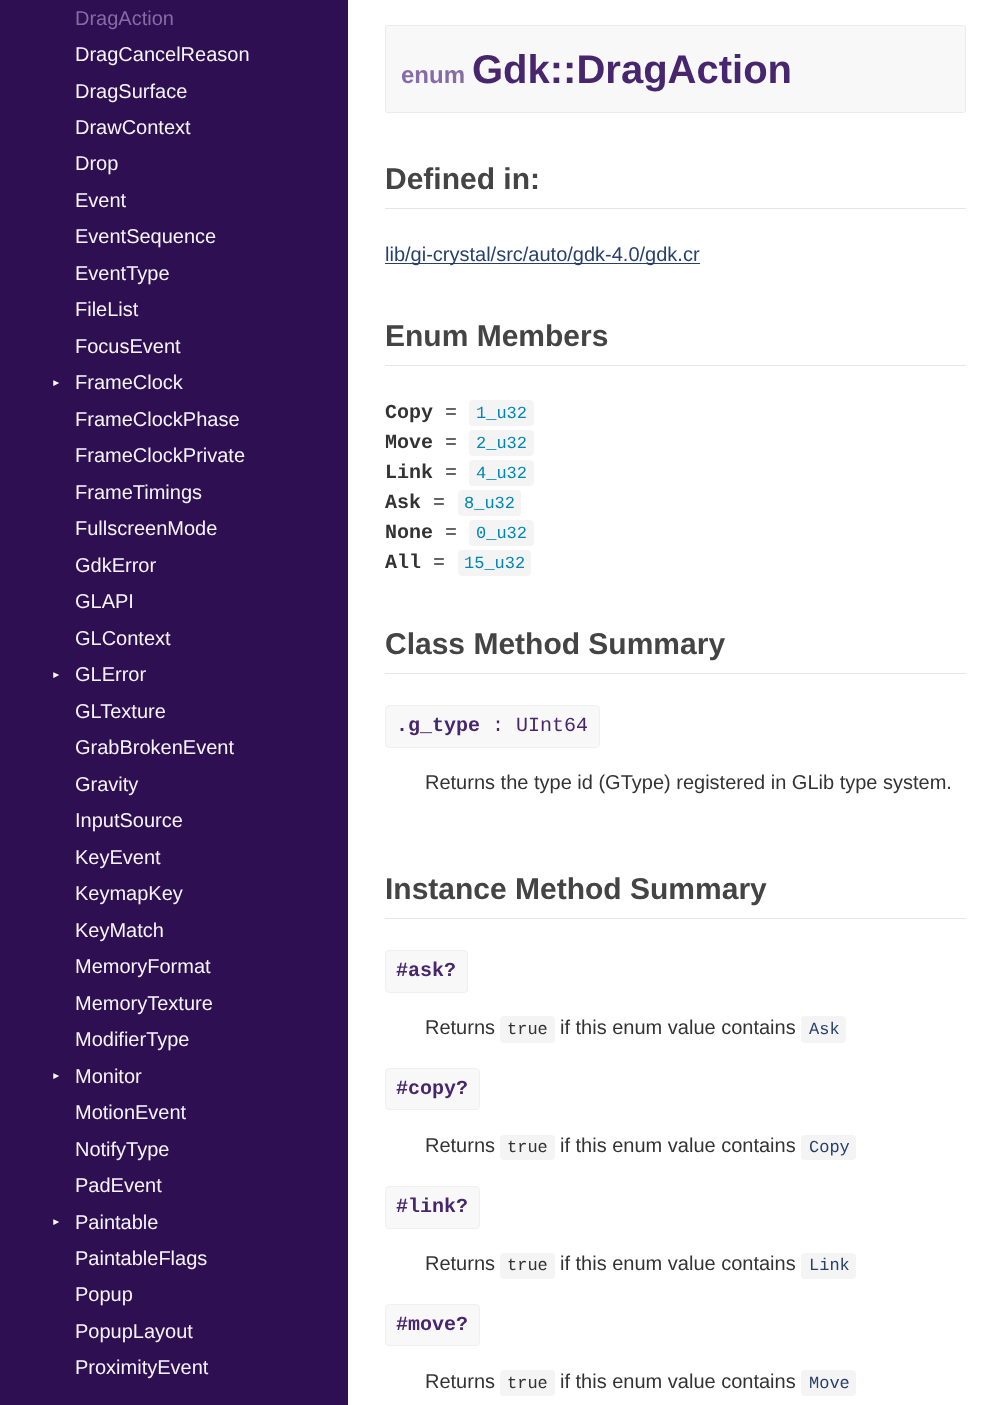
(async () => {
const canvas = document.querySelector("canvas")
canvas.width = 1003
canvas.height = 1405
const c = canvas.getContext("2d")
c.miterLimit = 4
c.fontKerning = "normal"
function T(s,x,y){c.fillText(s,x,y)}
function R(x,y,w,h){c.fillRect(x,y,w,h)}
function Q(x,y,w,h,r){c.beginPath();c.roundRect(x,y,w,h,r);c.fill()}
c.fillStyle="#fff"
R(0,0,1003,1405)
c.fillStyle="#2e1052"
R(0,0,348,1405)
c.font="20px Liberation Sans"
c.fillStyle="#866ba6"
T("DragAction",75,25)
c.fillStyle="#f8f4fd"
T("DragCancelReason",75,61)
T("DragSurface",75,98)
T("DrawContext",75,134)
T("Drop",75,170)
T("Event",75,207)
T("EventSequence",75,243)
T("EventType",75,280)
T("FileList",75,316)
T("FocusEvent",75,353)
c.font="10px Liberation Sans"
c.fillStyle="#fff"
c.save()
c.translate(59,388)
c.rotate(-90 * Math.PI / 180)
c.fillText("▼",0,0)
c.restore()
c.font="20px Liberation Sans"
c.fillStyle="#f8f4fd"
T("FrameClock",75,389)
T("FrameClockPhase",75,426)
T("FrameClockPrivate",75,462)
T("FrameTimings",75,499)
T("FullscreenMode",75,535)
T("GdkError",75,572)
T("GLAPI",75,608)
T("GLContext",75,645)
c.font="10px Liberation Sans"
c.fillStyle="#fff"
c.save()
c.translate(59,680)
c.rotate(-90 * Math.PI / 180)
c.fillText("▼",0,0)
c.restore()
c.font="20px Liberation Sans"
c.fillStyle="#f8f4fd"
T("GLError",75,681)
T("GLTexture",75,718)
T("GrabBrokenEvent",75,754)
T("Gravity",75,791)
T("InputSource",75,827)
T("KeyEvent",75,864)
T("KeymapKey",75,900)
T("KeyMatch",75,937)
T("MemoryFormat",75,973)
T("MemoryTexture",75,1010)
T("ModifierType",75,1046)
c.font="10px Liberation Sans"
c.fillStyle="#fff"
c.save()
c.translate(59,1081)
c.rotate(-90 * Math.PI / 180)
c.fillText("▼",0,0)
c.restore()
c.font="20px Liberation Sans"
c.fillStyle="#f8f4fd"
T("Monitor",75,1083)
T("MotionEvent",75,1119)
T("NotifyType",75,1156)
T("PadEvent",75,1192)
c.font="10px Liberation Sans"
c.fillStyle="#fff"
c.save()
c.translate(59,1227)
c.rotate(-90 * Math.PI / 180)
c.fillText("▼",0,0)
c.restore()
c.font="20px Liberation Sans"
c.fillStyle="#f8f4fd"
T("Paintable",75,1229)
T("PaintableFlags",75,1265)
T("Popup",75,1301)
T("PopupLayout",75,1338)
T("ProximityEvent",75,1374)
c.fillStyle="#f8f8f8"
c.beginPath()
c.roundRect(385.5,25.5,580,87,2)
c.fill()
c.strokeStyle="#ebebeb"
c.stroke()
c.font="bold 24px Liberation Sans"
c.fillStyle="#866ba6"
T("enum",401,83)
c.font="bold 40px Liberation Sans"
c.fillStyle="#47266e"
T("Gdk::DragAction",472,83)
c.fillStyle="#e6e6e6"
R(385,208,581,1)
c.font="bold 30px Liberation Sans"
c.fillStyle="#444"
T("Defined in:",385,189)
c.fillStyle="#263f6c"
R(385,263,315,1)
c.font="20px Liberation Sans"
T("lib/gi-crystal/src/auto/gdk-4.0/gdk.cr",385,261)
c.fillStyle="#e6e6e6"
R(385,365,581,1)
c.font="bold 30px Liberation Sans"
c.fillStyle="#444"
T("Enum Members",385,346)
c.font="bold 20px Liberation Mono"
c.fillStyle="#333"
T("Copy",385,418)
c.font="20px Liberation Mono"
T("=",445,418)
c.fillStyle="#f4f4f4"
Q(469,400,65,26,4)
c.font="17px Liberation Mono"
c.fillStyle="#0086b3"
T("1_u32",476,418)
c.font="bold 20px Liberation Mono"
c.fillStyle="#333"
T("Move",385,448)
c.font="20px Liberation Mono"
T("=",445,448)
c.fillStyle="#f4f4f4"
Q(469,430,65,26,4)
c.font="17px Liberation Mono"
c.fillStyle="#0086b3"
T("2_u32",476,448)
c.font="bold 20px Liberation Mono"
c.fillStyle="#333"
T("Link",385,478)
c.font="20px Liberation Mono"
T("=",445,478)
c.fillStyle="#f4f4f4"
Q(469,460,65,26,4)
c.font="17px Liberation Mono"
c.fillStyle="#0086b3"
T("4_u32",476,478)
c.font="bold 20px Liberation Mono"
c.fillStyle="#333"
T("Ask",385,508)
c.font="20px Liberation Mono"
T("=",433,508)
c.fillStyle="#f4f4f4"
Q(458,490,63,26,4)
c.font="17px Liberation Mono"
c.fillStyle="#0086b3"
T("8_u32",464,508)
c.font="bold 20px Liberation Mono"
c.fillStyle="#333"
T("None",385,538)
c.font="20px Liberation Mono"
T("=",445,538)
c.fillStyle="#f4f4f4"
Q(469,520,65,26,4)
c.font="17px Liberation Mono"
c.fillStyle="#0086b3"
T("0_u32",476,538)
c.font="bold 20px Liberation Mono"
c.fillStyle="#333"
T("All",385,568)
c.font="20px Liberation Mono"
T("=",433,568)
c.fillStyle="#f4f4f4"
Q(458,550,73,26,4)
c.font="17px Liberation Mono"
c.fillStyle="#0086b3"
T("15_u32",464,568)
c.fillStyle="#e6e6e6"
R(385,673,581,1)
c.font="bold 30px Liberation Sans"
c.fillStyle="#444"
T("Class Method Summary",385,654)
c.fillStyle="#f8f8f8"
c.beginPath()
c.roundRect(385.5,705.5,214,42,3.5)
c.fill()
c.strokeStyle="#f0f0f0"
c.stroke()
c.font="bold 20px Liberation Mono"
c.fillStyle="#47266e"
T(".g_type",396,731)
c.font="20px Liberation Mono"
T(": UInt64",492,731)
c.font="20px Liberation Sans"
c.fillStyle="#333"
T("Returns the type id (GType) registered in GLib type system.",425,789)
c.fillStyle="#e6e6e6"
R(385,918,581,1)
c.font="bold 30px Liberation Sans"
c.fillStyle="#444"
T("Instance Method Summary",385,899)
c.fillStyle="#f8f8f8"
c.beginPath()
c.roundRect(385.5,950.5,82,42,3.5)
c.fill()
c.stroke()
c.font="bold 20px Liberation Mono"
c.fillStyle="#47266e"
T("#ask?",396,976)
c.font="20px Liberation Sans"
c.fillStyle="#333"
T("Returns",425,1034)
c.fillStyle="#f4f4f4"
Q(500,1016,55,27,4)
c.font="17px Liberation Mono"
c.fillStyle="#333"
T("true",507,1034)
c.font="20px Liberation Sans"
T("if this enum value contains",560,1034)
c.fillStyle="#f4f4f4"
Q(801,1016,45,27,4)
c.font="17px Liberation Mono"
c.fillStyle="#263f6c"
T("Ask",809,1034)
c.fillStyle="#f8f8f8"
c.beginPath()
c.roundRect(385.5,1068.5,94,41,3.5)
c.fill()
c.stroke()
c.font="bold 20px Liberation Mono"
c.fillStyle="#47266e"
T("#copy?",396,1094)
c.font="20px Liberation Sans"
c.fillStyle="#333"
T("Returns",425,1152)
c.fillStyle="#f4f4f4"
Q(500,1135,55,25,4)
c.font="17px Liberation Mono"
c.fillStyle="#333"
T("true",507,1152)
c.font="20px Liberation Sans"
T("if this enum value contains",560,1152)
c.fillStyle="#f4f4f4"
Q(801,1135,55,25,4)
c.font="17px Liberation Mono"
c.fillStyle="#263f6c"
T("Copy",809,1152)
c.fillStyle="#f8f8f8"
c.beginPath()
c.roundRect(385.5,1186.5,94,42,3.5)
c.fill()
c.stroke()
c.font="bold 20px Liberation Mono"
c.fillStyle="#47266e"
T("#link?",396,1212)
c.font="20px Liberation Sans"
c.fillStyle="#333"
T("Returns",425,1270)
c.fillStyle="#f4f4f4"
Q(500,1253,55,26,4)
c.font="17px Liberation Mono"
c.fillStyle="#333"
T("true",507,1270)
c.font="20px Liberation Sans"
T("if this enum value contains",560,1270)
c.fillStyle="#f4f4f4"
Q(801,1253,55,26,4)
c.font="17px Liberation Mono"
c.fillStyle="#263f6c"
T("Link",809,1270)
c.fillStyle="#f8f8f8"
c.beginPath()
c.roundRect(385.5,1304.5,94,41,3.5)
c.fill()
c.stroke()
c.font="bold 20px Liberation Mono"
c.fillStyle="#47266e"
T("#move?",396,1330)
c.font="20px Liberation Sans"
c.fillStyle="#333"
T("Returns",425,1388)
c.fillStyle="#f4f4f4"
Q(500,1370,55,26,4)
c.font="17px Liberation Mono"
c.fillStyle="#333"
T("true",507,1388)
c.font="20px Liberation Sans"
T("if this enum value contains",560,1388)
c.fillStyle="#f4f4f4"
Q(801,1370,55,26,4)
c.font="17px Liberation Mono"
c.fillStyle="#263f6c"
T("Move",809,1388)
})()
